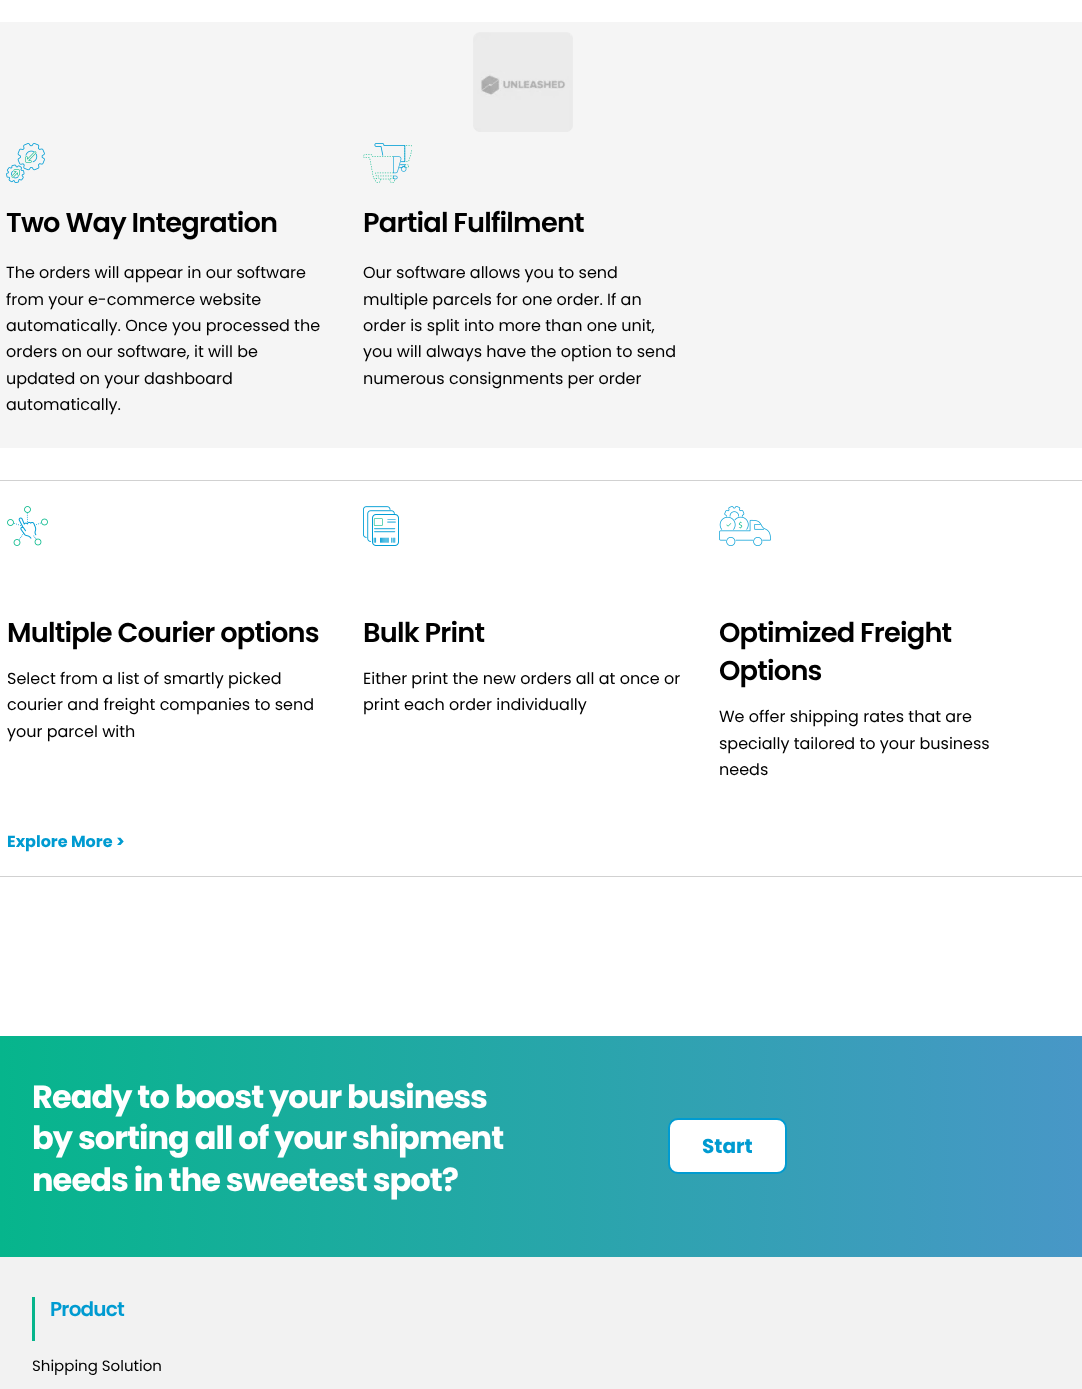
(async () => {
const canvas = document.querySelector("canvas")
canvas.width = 1082
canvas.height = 1389
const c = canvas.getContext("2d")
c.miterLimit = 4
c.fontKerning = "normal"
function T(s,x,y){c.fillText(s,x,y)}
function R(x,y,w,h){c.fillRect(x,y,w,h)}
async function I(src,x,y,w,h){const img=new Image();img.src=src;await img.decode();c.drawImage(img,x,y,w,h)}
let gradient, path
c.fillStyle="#fff"
R(0,0,1082,1389)
c.fillStyle="#f5f5f5"
R(0,22,1082,426)
await I("1.png",473,32,100,100)
await I("2.png",6,143,39,40)
c.letterSpacing="-0.8px"
c.font="600 27.25px Poppins"
c.fillStyle="#000"
T("Two Way Integration",6,232)
c.letterSpacing="0px"
c.font="16px Poppins"
T("The orders will appear in our software",6,278)
T("from your e-commerce website",6,305)
T("automatically. Once you processed the",6,331)
T("orders on our software, it will be",6,357)
T("updated on your dashboard",6,384)
T("automatically.",6,410)
await I("3.png",363,143,49,40)
c.letterSpacing="-0.8px"
c.font="600 27.25px Poppins"
T("Partial Fulfilment",363,232)
c.letterSpacing="0px"
c.font="16px Poppins"
T("Our software allows you to send",363,278)
T("multiple parcels for one order. If an",363,305)
T("order is split into more than one unit,",363,331)
T("you will always have the option to send",363,357)
T("numerous consignments per order",363,384)
c.fillStyle="#d1d1d1"
path = new Path2D("M-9 480h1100c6 0 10 4 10 10v339h-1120v-339c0-6 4-10 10-10zm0 1h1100c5 0 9 4 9 9v339h-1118v-339c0-5 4-9 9-9z")
c.fill(path,"evenodd")
await I("4.png",7,506,41,40)
c.letterSpacing="-0.8px"
c.font="600 27.25px Poppins"
c.fillStyle="#000"
T("Multiple Courier options",7,642)
c.letterSpacing="0px"
c.font="16px Poppins"
T("Select from a list of smartly picked",7,684)
T("courier and freight companies to send",7,710)
T("your parcel with",7,737)
await I("5.png",363,506,36,40)
c.letterSpacing="-0.8px"
c.font="600 27.25px Poppins"
T("Bulk Print",363,642)
c.letterSpacing="0px"
c.font="16px Poppins"
T("Either print the new orders all at once or",363,684)
T("print each order individually",363,710)
await I("6.png",719,506,52,40)
c.letterSpacing="-0.8px"
c.font="600 27.25px Poppins"
T("Optimized Freight",719,642)
T("Options",719,680)
c.letterSpacing="0px"
c.font="16px Poppins"
T("We offer shipping rates that are",719,722)
T("specially tailored to your business",719,749)
T("needs",719,775)
c.fillStyle="#d1d1d1"
path = new Path2D("M-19 829h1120v38c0 6-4 10-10 10h-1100c-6 0-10-4-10-10zm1 0h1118v38c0 5-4 9-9 9h-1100c-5 0-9-4-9-9z")
c.fill(path,"evenodd")
c.font="bold 16px Poppins"
c.fillStyle="#009bd1"
T("Explore More >",7,847)
gradient = c.createLinearGradient(1082,1147,0,1147)
gradient.addColorStop(0,"#4897c7")
gradient.addColorStop(1,"#06b58c")
c.fillStyle = gradient
R(0,1036,1082,221)
c.letterSpacing="-0.95px"
c.font="bold 32px Poppins"
c.fillStyle="#fff"
T("Ready to boost your business",32,1108)
T("by sorting all of your shipment",32,1149)
T("needs in the sweetest spot?",32,1191)
c.beginPath()
c.roundRect(669,1119,117,54,9)
c.fill()
c.strokeStyle="#009bd1"
c.lineWidth=2
c.stroke()
c.letterSpacing="0px"
c.font="bold 20px Poppins"
c.fillStyle="#009bd1"
T("Start",702,1153)
c.fillStyle="#f2f2f2"
R(0,1257,1082,132)
c.fillStyle="#06b58c"
R(32,1297,3,44)
c.letterSpacing="-0.8px"
c.font="600 20px Poppins"
c.fillStyle="#009bd1"
T("Product",50,1316)
c.letterSpacing="0px"
c.font="15px Poppins"
c.fillStyle="#000"
T("Shipping Solution",32,1371)
})()
